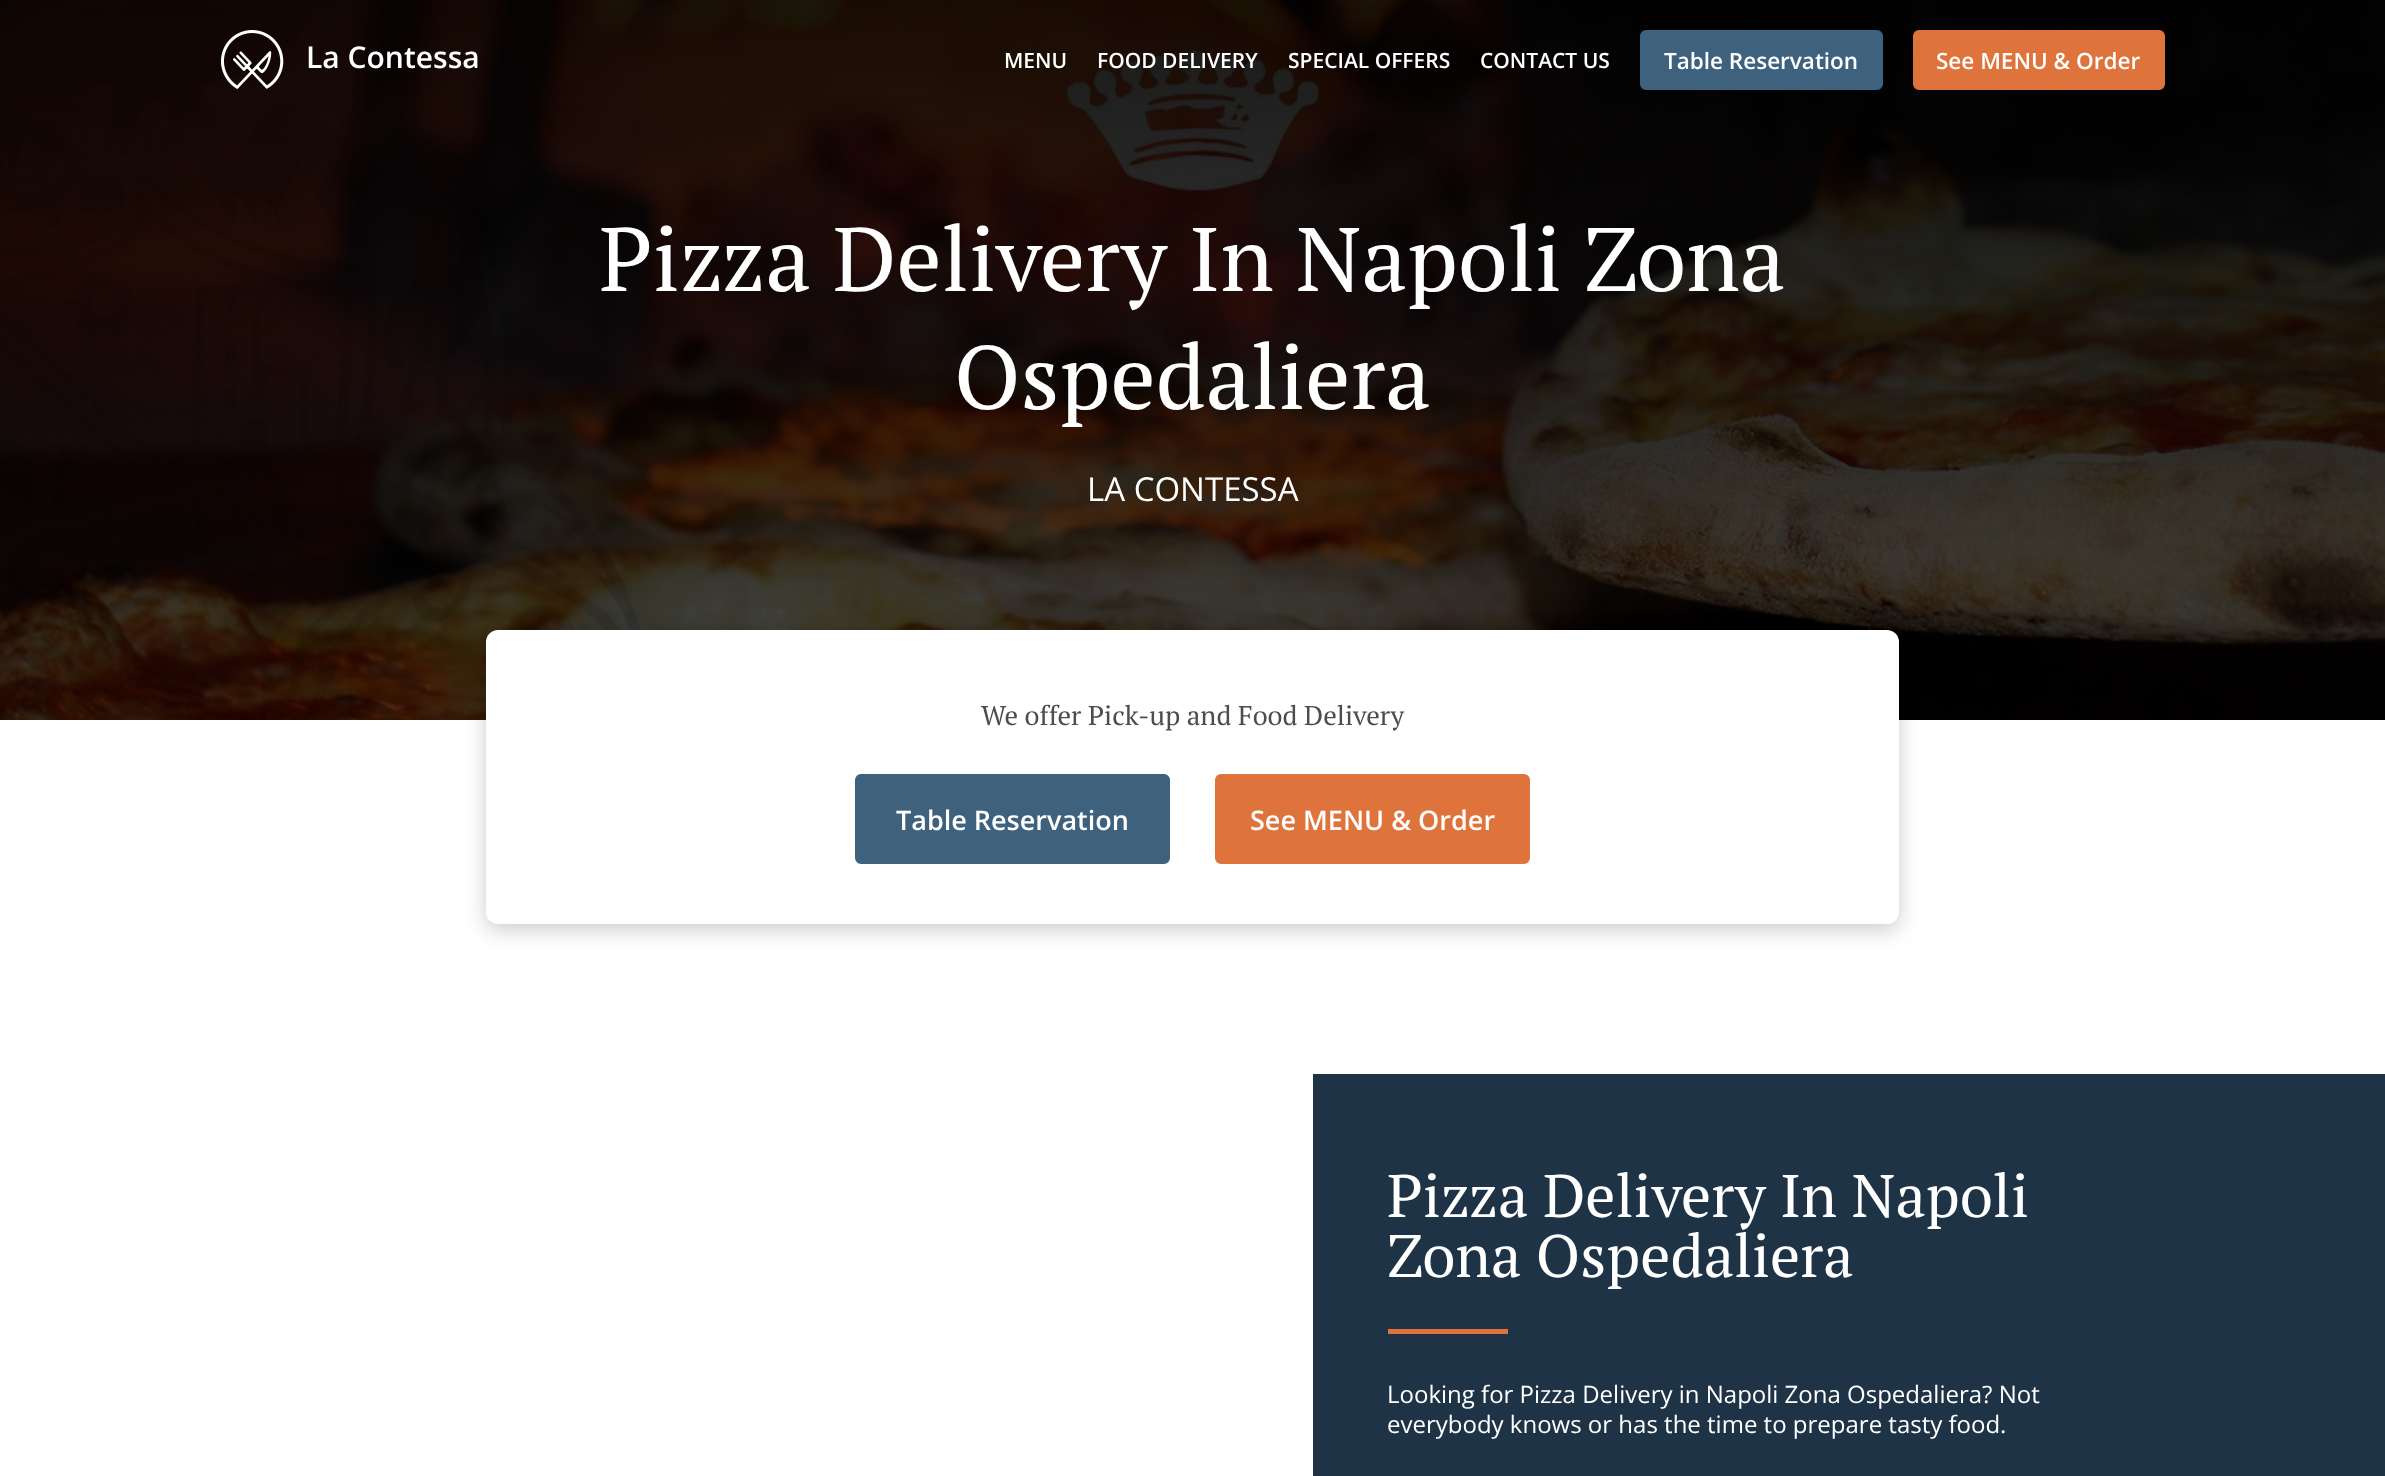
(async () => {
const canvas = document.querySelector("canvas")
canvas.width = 2385
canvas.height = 1476
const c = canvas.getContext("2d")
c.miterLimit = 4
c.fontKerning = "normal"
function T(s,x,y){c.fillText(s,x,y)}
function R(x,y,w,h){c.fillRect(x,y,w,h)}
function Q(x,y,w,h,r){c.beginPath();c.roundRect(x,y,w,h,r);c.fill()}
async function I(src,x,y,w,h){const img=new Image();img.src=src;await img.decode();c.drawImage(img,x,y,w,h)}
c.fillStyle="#fff"
R(0,0,2385,1476)
await I("2.png",0,0,2385,720)
await I("1.png",221,30,63,60)
c.font="600 30px Open Sans"
T("La Contessa",306,68)
c.font="600 21px Open Sans"
T("MENU",1004,68)
T("FOOD DELIVERY",1097,68)
T("SPECIAL OFFERS",1288,68)
T("CONTACT US",1480,68)
c.fillStyle="#3e617d"
c.beginPath()
c.roundRect(1641,31,241,58,5)
c.fill()
c.strokeStyle="#3e617d"
c.lineWidth=2
c.stroke()
c.font="600 22.5px Open Sans"
c.fillStyle="#fff"
T("Table Reservation",1664,69)
c.fillStyle="#df733c"
c.beginPath()
c.roundRect(1914,31,250,58,5)
c.fill()
c.strokeStyle="#df733c"
c.stroke()
c.fillStyle="#fff"
T("See MENU & Order",1936,69)
c.font="90px PT Serif"
T("Pizza Delivery In Napoli Zona",599,291)
T("Ospedaliera",954,409)
c.font="33px Open Sans"
T("LA CONTESSA",1087,501)
c.fillStyle="#00000033"
c.filter="blur(10.5px)"
c.beginPath()
c.roundRect(486,636,1413,294,12)
c.fill()
c.filter="none"
c.fillStyle="#fff"
Q(486,630,1413,294,12)
c.font="27px PT Serif"
c.fillStyle="#4d4d4d"
T("We offer Pick-up and Food Delivery",981,725)
c.fillStyle="#3e617d"
c.beginPath()
c.roundRect(856,775,313,88,5)
c.fill()
c.strokeStyle="#3e617d"
c.stroke()
c.font="600 27px Open Sans"
c.fillStyle="#fff"
T("Table Reservation",896,830)
c.fillStyle="#df733c"
c.beginPath()
c.roundRect(1216,775,313,88,5)
c.fill()
c.strokeStyle="#df733c"
c.stroke()
c.fillStyle="#fff"
T("See MENU & Order",1250,830)
c.fillStyle="#1e3446"
R(1313,1074,1072,402)
c.font="60px PT Serif"
c.fillStyle="#fff"
T("Pizza Delivery In Napoli",1387,1217)
T("Zona Ospedaliera",1387,1277)
c.fillStyle="#df733c"
R(1388,1329,120,5)
c.font="24px Open Sans"
c.fillStyle="#fff"
T("Looking for Pizza Delivery in Napoli Zona Ospedaliera? Not",1387,1403)
T("everybody knows or has the time to prepare tasty food.",1387,1433)
})()
